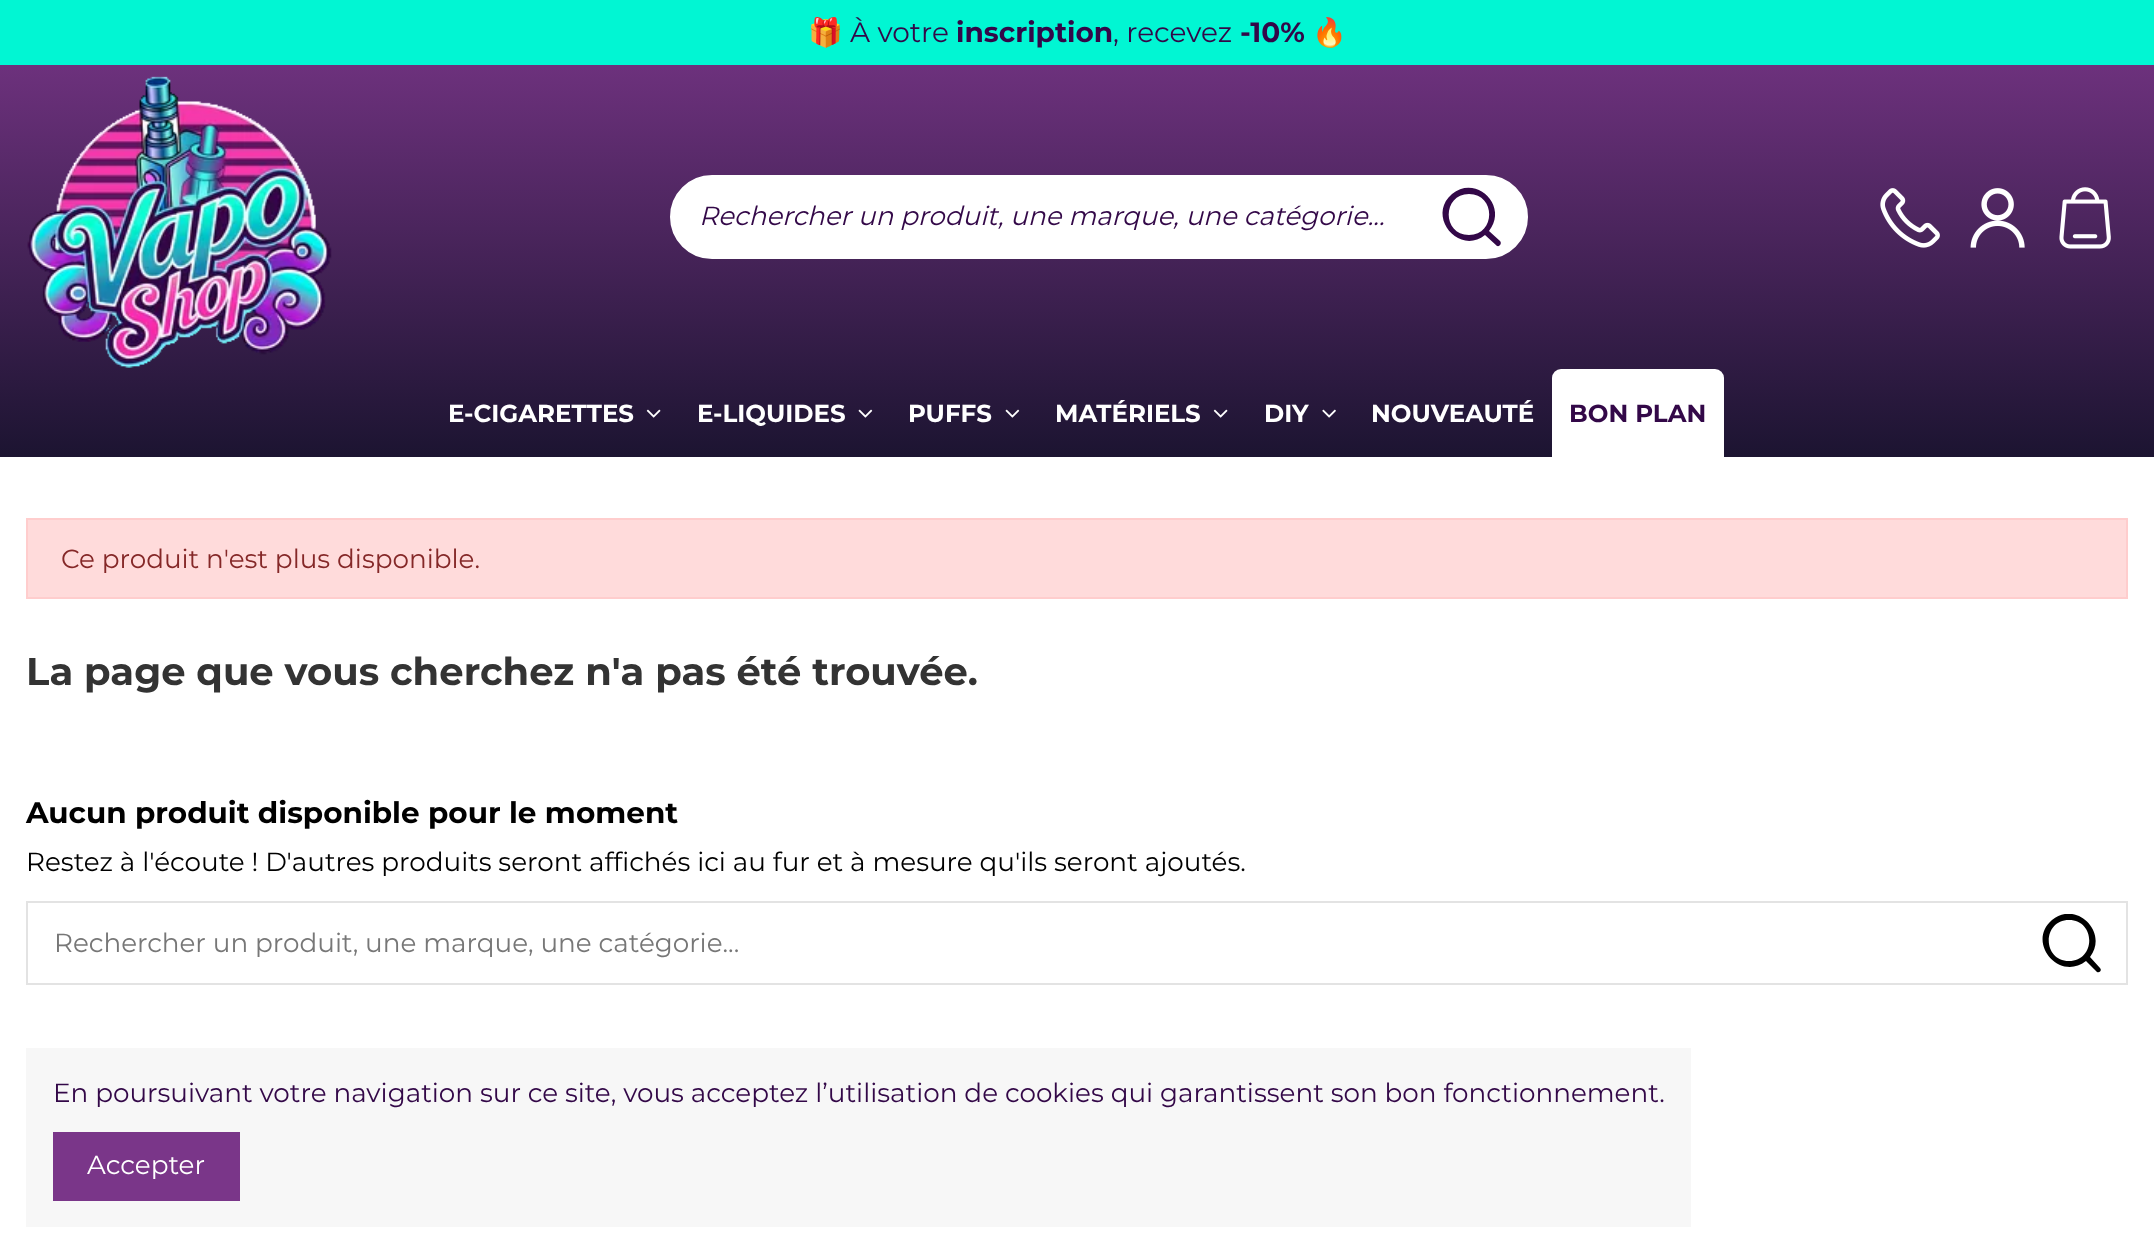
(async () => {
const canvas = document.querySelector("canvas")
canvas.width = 2154
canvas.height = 1253
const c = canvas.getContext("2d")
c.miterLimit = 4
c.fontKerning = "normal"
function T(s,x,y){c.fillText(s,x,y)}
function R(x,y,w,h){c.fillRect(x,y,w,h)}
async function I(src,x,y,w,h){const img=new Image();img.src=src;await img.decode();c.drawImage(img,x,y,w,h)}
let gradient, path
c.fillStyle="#fff"
R(0,0,2154,1253)
gradient = c.createLinearGradient(1077,457,1077,0)
gradient.addColorStop(0,"#1c1431")
gradient.addColorStop(1,"#7a3689")
c.fillStyle = gradient
R(0,65,2154,392)
c.fillStyle="#01f6d3"
R(0,0,2154,65)
c.font="28px Noto Color Emoji"
c.fillStyle="#330848"
T("🎁",808,42)
c.font="28px Montserrat"
T("À votre",850,42)
c.font="bold 28px Montserrat"
T("inscription",956,42)
c.font="28px Montserrat"
T(", recevez",1113,42)
c.font="bold 28px Montserrat"
T("-10%",1240,42)
c.font="28px Noto Color Emoji"
T("🔥",1312,42)
await I("1.png",27,76,305,292)
c.fillStyle="#fff"
c.beginPath()
c.roundRect(671,176,856,82,41)
c.fill()
c.strokeStyle="#fff"
c.lineWidth=2
c.stroke()
c.font="italic 26.25px Montserrat"
c.fillStyle="#330848"
T("Rechercher un produit, une marque, une catégorie...",699,225)
path = new Path2D("M1500 241l-11-10c20-25-13-57-37-37c-26 22 7 62 33 41l12 11c3 1 5-3 3-5m-31-6c-27 0-27-41 0-41c27 0 27 41 0 41")
c.fill(path)
await I("2.png",1880,188,60,60)
await I("3.png",1970,188,55,60)
await I("4.png",2059,187,52,62)
c.font="bold 24.5px Montserrat"
c.fillStyle="#fff"
T("E-CIGARETTES",448,422)
await I("5.png",646,409,15,9)
T("E-LIQUIDES",697,422)
await I("6.png",858,409,15,9)
T("PUFFS",908,422)
await I("6.png",1005,409,15,9)
T("MATÉRIELS",1055,422)
await I("5.png",1213,409,15,9)
T("DIY",1264,422)
await I("7.png",1322,409,14,9)
T("NOUVEAUTÉ",1371,422)
c.beginPath()
c.roundRect(1552,369,172,88,[9,9,0,0])
c.fill()
c.fillStyle="#330848"
T("BON PLAN",1569,422)
c.fillStyle="#ffdbdb"
c.beginPath()
c.rect(27,519,2100,79)
c.fill()
c.strokeStyle="#ffcdcd"
c.stroke()
c.font="26.25px Montserrat"
c.fillStyle="#852828"
T("Ce produit n'est plus disponible.",61,568)
c.font="bold 38.5px Montserrat"
c.fillStyle="#333"
T("La page que vous cherchez n'a pas été trouvée.",26,685)
c.font="bold 29.5px Montserrat"
c.fillStyle="#000"
T("Aucun produit disponible pour le moment",26,823)
c.font="26.25px Montserrat"
T("Restez à l'écoute ! D'autres produits seront affichés ici au fur et à mesure qu'ils seront ajoutés.",26,871)
c.strokeStyle="#e3e3e3"
c.strokeRect(27,902,2100,82)
c.fillStyle="#777"
T("Rechercher un produit, une marque, une catégorie...",54,952)
c.save()
c.beginPath()
c.rect(2042,914,60,59)
c.clip()
c.fillStyle="#000"
path = new Path2D("M2100 968l-10-11c19-25-14-57-38-37c-26 22 7 62 34 41l11 11c3 1 5-2 3-4m-31-7c-27 0-27-41 0-41c27 0 27 41 0 41")
c.fill(path)
c.restore()
c.fillStyle="#f7f7f7"
R(26,1048,1665,179)
c.fillStyle="#330848"
T("En poursuivant votre navigation sur ce site, vous acceptez l’utilisation de cookies qui garantissent son bon fonctionnement.",53,1102)
c.fillStyle="#7a3689"
R(53,1132,187,69)
c.fillStyle="#fff"
T("Accepter",87,1174)
})()
